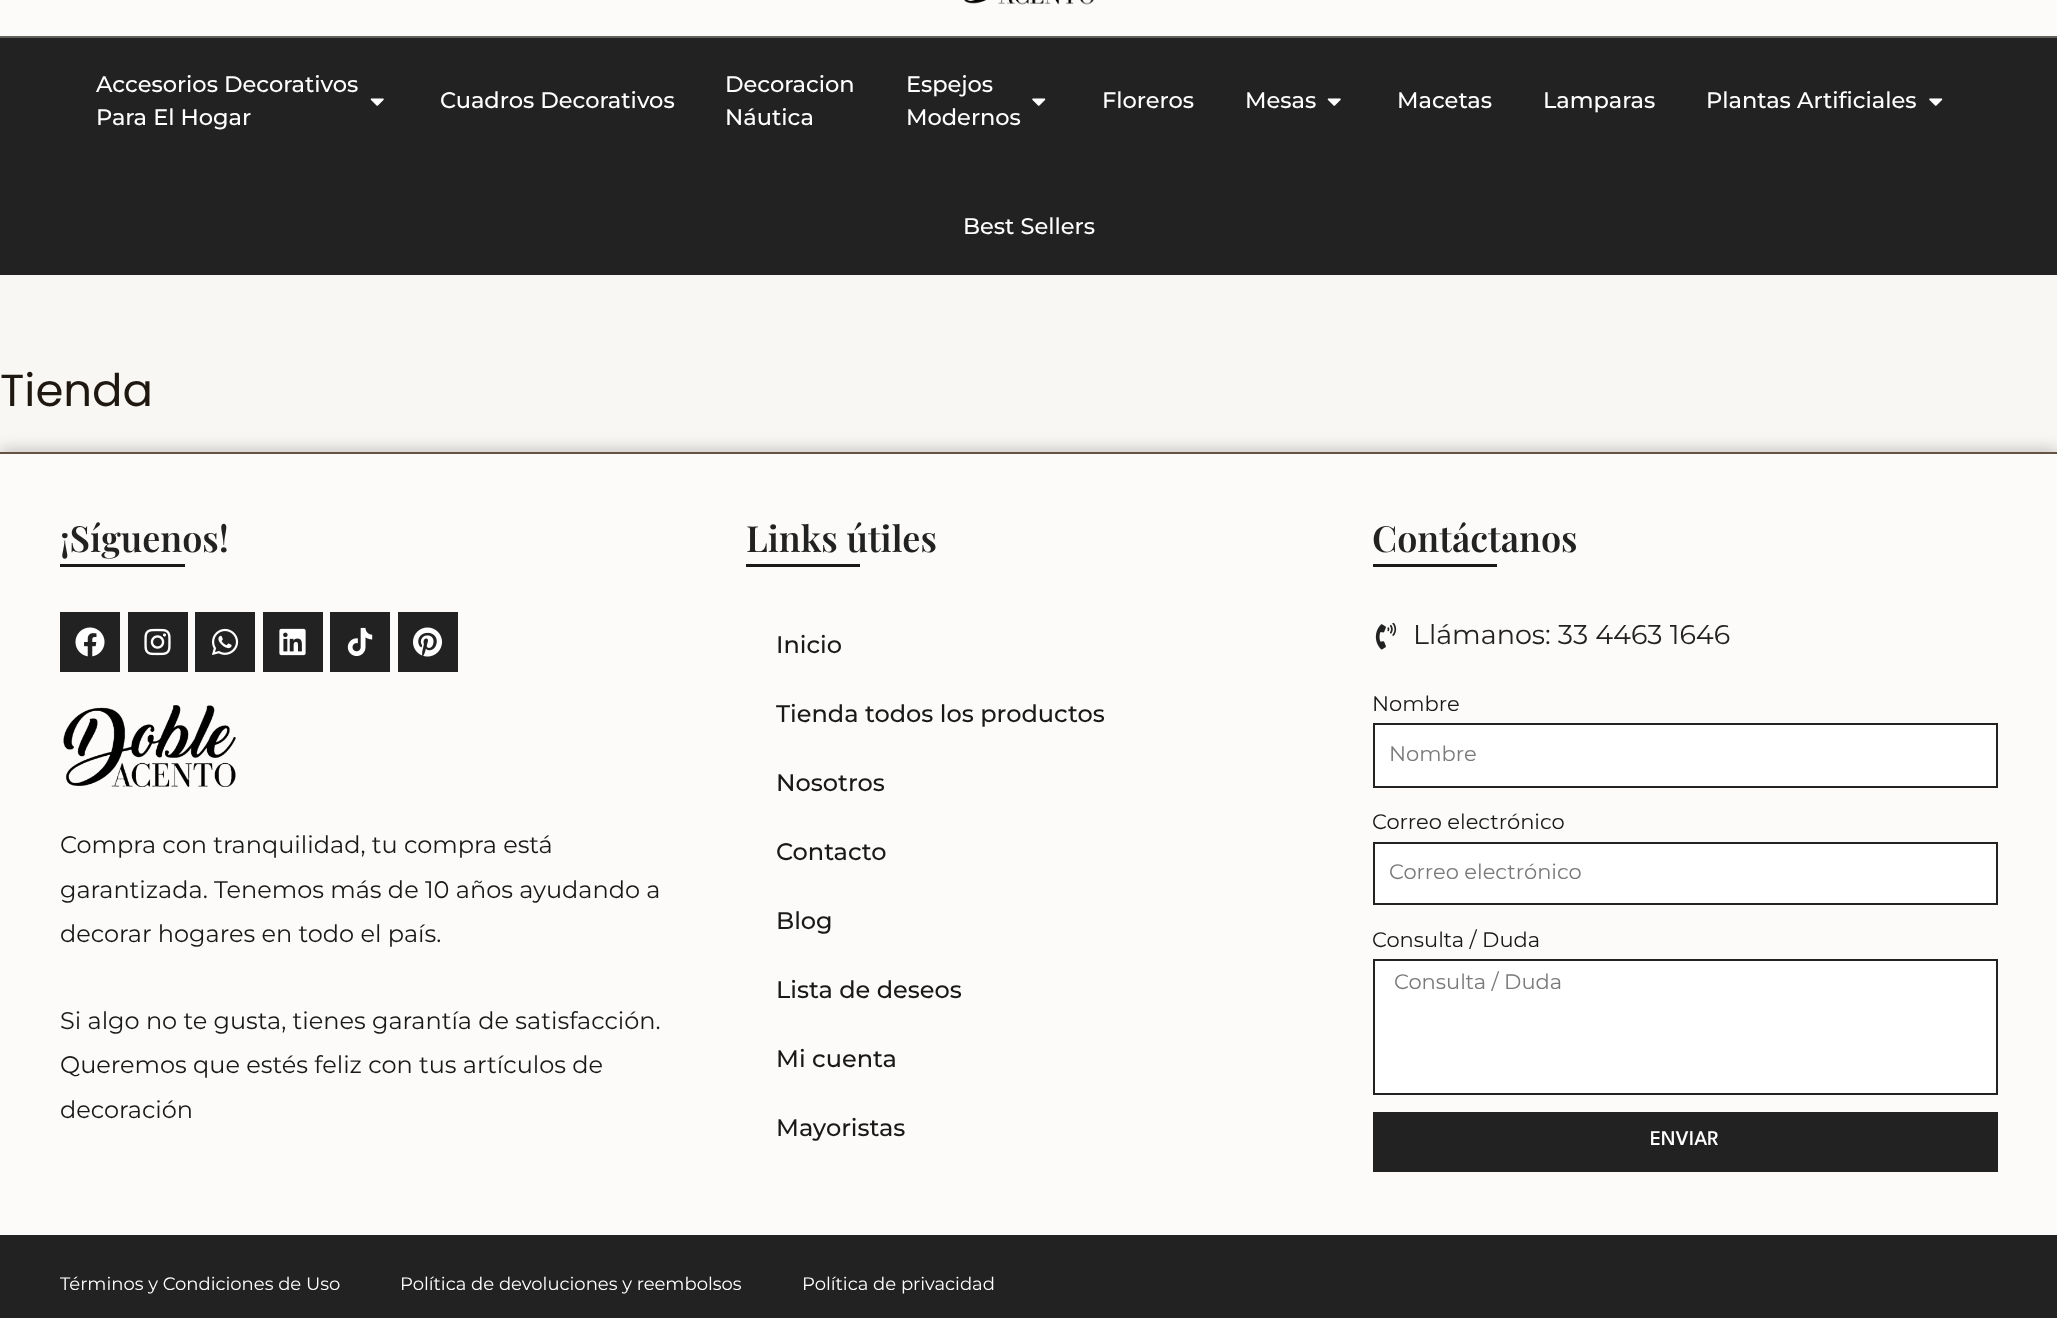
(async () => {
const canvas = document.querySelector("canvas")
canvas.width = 2057
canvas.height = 1318
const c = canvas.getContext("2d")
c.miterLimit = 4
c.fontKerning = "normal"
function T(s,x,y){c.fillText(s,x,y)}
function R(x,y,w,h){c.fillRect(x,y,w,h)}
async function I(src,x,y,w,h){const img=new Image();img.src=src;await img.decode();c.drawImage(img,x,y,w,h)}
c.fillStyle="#f8f7f3"
R(0,0,2057,1318)
c.fillStyle="#fcfbf9"
R(0,0,2057,36)
c.fillStyle="#62615c"
R(0,36,2057,2)
await I("1.png",963,0,131,5)
c.fillStyle="#222"
R(0,38,2057,237)
c.font="500 22.5px Montserrat"
c.fillStyle="#fff"
T("Accesorios Decorativos",96,92)
T("Para El Hogar",96,125)
await I("2.png",370,98,14,8)
T("Cuadros Decorativos",440,108)
T("Decoracion",725,92)
T("Náutica",725,125)
T("Espejos",906,92)
T("Modernos",906,125)
await I("3.png",1032,98,14,8)
T("Floreros",1102,108)
T("Mesas",1245,108)
await I("2.png",1327,98,14,8)
T("Macetas",1397,108)
T("Lamparas",1543,108)
T("Plantas Artificiales",1706,108)
await I("3.png",1929,98,14,8)
T("Best Sellers",963,234)
c.font="45px Poppins"
c.fillStyle="#1e1810"
T("Tienda",0,406)
c.fillStyle="#00000033"
c.filter="blur(7.5px)"
c.beginPath()
c.rect(0,449,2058,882)
c.fill()
c.filter="none"
c.fillStyle="#fcfbf9"
R(0,454,2057,781)
c.fillStyle="#645244"
R(0,452,2057,2)
c.font="600 36px Playfair Display"
c.fillStyle="#222"
T("¡Síguenos!",60,552)
c.fillStyle="#191919"
R(60,564,125,3)
c.fillStyle="#222"
R(60,612,60,60)
await I("4.png",75,627,30,30)
R(128,612,60,60)
await I("5.png",144,628,27,28)
R(195,612,60,60)
await I("6.png",212,628,27,27)
R(263,612,60,60)
await I("7.png",279,628,27,28)
R(330,612,60,60)
await I("8.png",347,627,26,30)
R(398,612,60,60)
await I("9.png",413,627,29,30)
await I("10.png",63,705,173,82)
c.font="24px Montserrat"
c.fillStyle="#191919"
T("Compra con tranquilidad, tu compra está",60,853)
T("garantizada. Tenemos más de 10 años ayudando a",60,898)
T("decorar hogares en todo el país.",60,942)
T("Si algo no te gusta, tienes garantía de satisfacción.",60,1029)
T("Queremos que estés feliz con tus artículos de",60,1073)
T("decoración",60,1118)
c.font="600 36px Playfair Display"
c.fillStyle="#222"
T("Links útiles",746,552)
c.fillStyle="#191919"
R(746,564,114,3)
c.font="500 24px Montserrat"
T("Inicio",776,653)
T("Tienda todos los productos",776,722)
T("Nosotros",776,791)
T("Contacto",776,860)
T("Blog",776,929)
T("Lista de deseos",776,998)
T("Mi cuenta",776,1067)
T("Mayoristas",776,1136)
c.font="600 36px Playfair Display"
c.fillStyle="#222"
T("Contáctanos",1372,552)
c.fillStyle="#191919"
R(1373,564,124,3)
await I("11.png",1375,623,22,27)
c.font="27px Montserrat"
c.fillStyle="#222"
T("Llámanos: 33 4463 1646",1413,644)
c.font="21px Montserrat"
c.fillStyle="#191919"
T("Nombre",1372,711)
c.fillStyle="#fff"
c.beginPath()
c.rect(1374,724,623,63)
c.fill()
c.strokeStyle="#222"
c.lineWidth=2
c.stroke()
c.fillStyle="#7a7a7a"
T("Nombre",1389,761)
c.fillStyle="#191919"
T("Correo electrónico",1372,829)
c.fillStyle="#fff"
c.beginPath()
c.rect(1374,843,623,61)
c.fill()
c.stroke()
c.fillStyle="#7a7a7a"
T("Correo electrónico",1389,879)
c.fillStyle="#191919"
T("Consulta / Duda",1372,947)
c.fillStyle="#fff"
c.beginPath()
c.rect(1374,960,623,134)
c.fill()
c.stroke()
c.fillStyle="#7a7a7a"
T("Consulta / Duda",1394,989)
c.fillStyle="#222"
R(1373,1112,625,60)
c.font="500 21px League Spartan"
c.fillStyle="#fff"
T("ENVIAR",1650,1145)
c.fillStyle="#222"
R(0,1235,2057,83)
c.font="18px Montserrat"
c.fillStyle="#fff"
T("Términos y Condiciones de Uso",60,1290)
T("Política de devoluciones y reembolsos",400,1290)
T("Política de privacidad",802,1290)
})()
